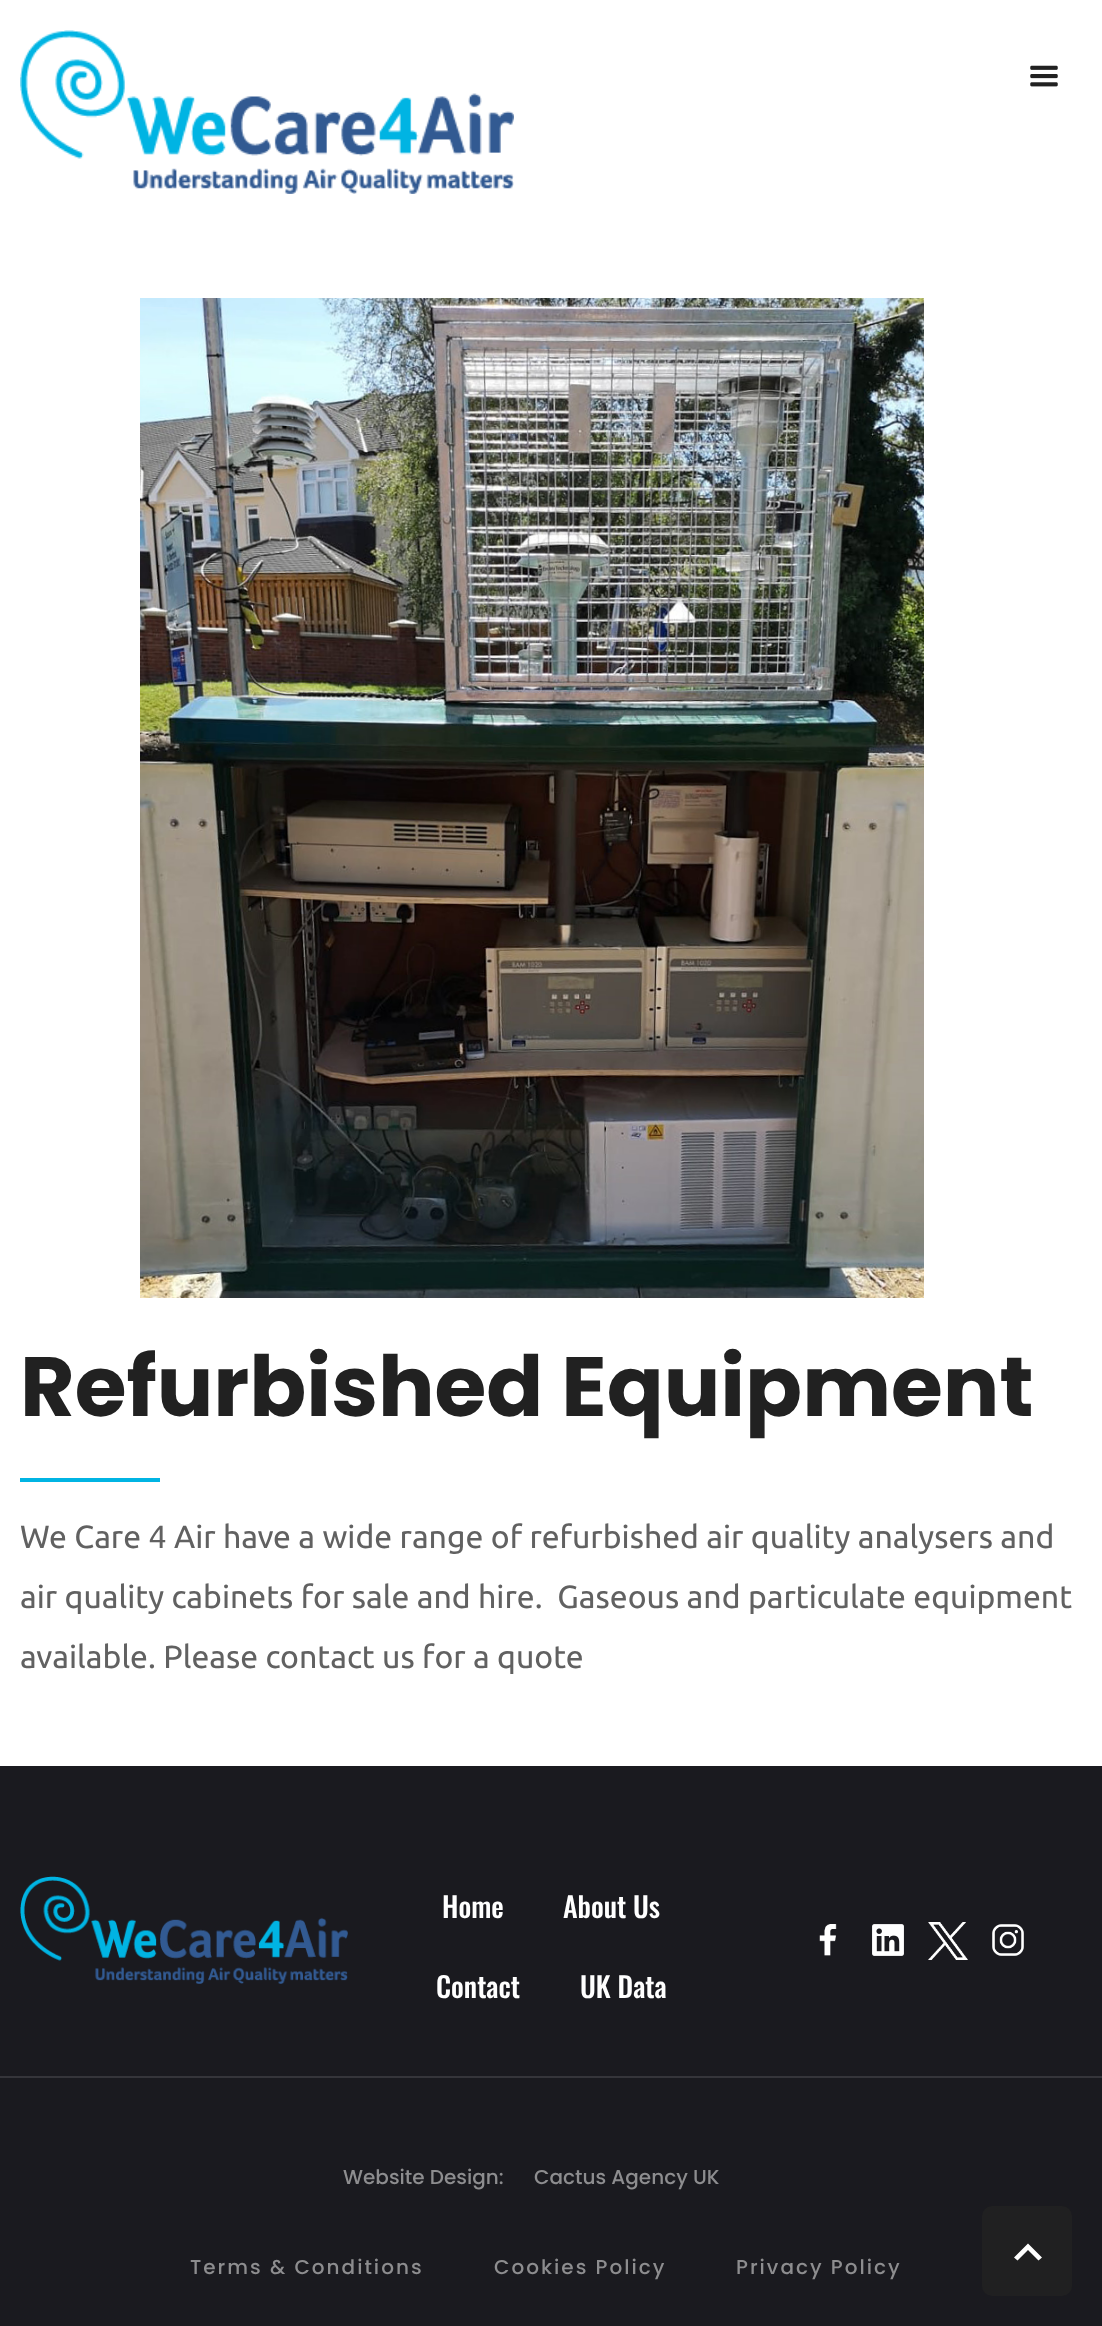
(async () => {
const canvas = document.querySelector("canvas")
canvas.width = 1102
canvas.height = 2326
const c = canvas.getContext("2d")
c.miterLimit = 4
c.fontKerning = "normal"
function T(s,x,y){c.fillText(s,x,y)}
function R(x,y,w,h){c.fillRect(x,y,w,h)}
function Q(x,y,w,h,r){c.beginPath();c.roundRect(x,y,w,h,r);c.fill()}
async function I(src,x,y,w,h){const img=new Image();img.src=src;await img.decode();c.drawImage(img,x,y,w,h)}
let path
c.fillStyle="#fff"
R(0,0,1102,2326)
await I("1.png",20,30,494,164)
await I("2.png",1030,65,28,22)
await I("3.png",140,298,784,1000)
c.font="bold 84px Poppins"
c.fillStyle="#212121"
T("Refurbished Equipment",20,1416)
c.fillStyle="#00b4e3"
R(20,1478,140,4)
c.font="32px Ubuntu"
c.fillStyle="#616161"
T("We Care 4 Air have a wide range of refurbished air quality analysers and",20,1548)
T("air quality cabinets for sale and hire.  Gaseous and particulate equipment",20,1608)
T("available. Please contact us for a quote",20,1668)
c.fillStyle="#1a1a1f"
R(0,1766,1102,560)
c.fillStyle="#35353a"
R(0,2076,1102,2)
await I("4.png",20,1876,328,108)
c.font="500 28px Oswald"
c.fillStyle="#fff"
T("Home",442,1918)
T("About Us",563,1918)
T("Contact",436,1998)
T("UK Data",580,1998)
await I("5.png",819,1924,18,32)
await I("6.png",872,1924,32,32)
await I("7.png",928,1922,40,38)
await I("8.png",992,1924,32,32)
c.font="500 20px Poppins"
c.fillStyle="#8d8d8f"
T("Website Design:",343,2184)
T("Cactus Agency UK",534,2184)
c.letterSpacing="2px"
T("Terms & Conditions",190,2274)
T("Cookies Policy",494,2274)
T("Privacy Policy",736,2274)
c.fillStyle="#202021"
Q(982,2206,90,90,10)
c.fillStyle="#fff"
path = new Path2D("M1028 2243.5l-14 14l3.5 3l10.5-10.5l10.5 10.5l3.5-3z")
c.fill(path)
})()
